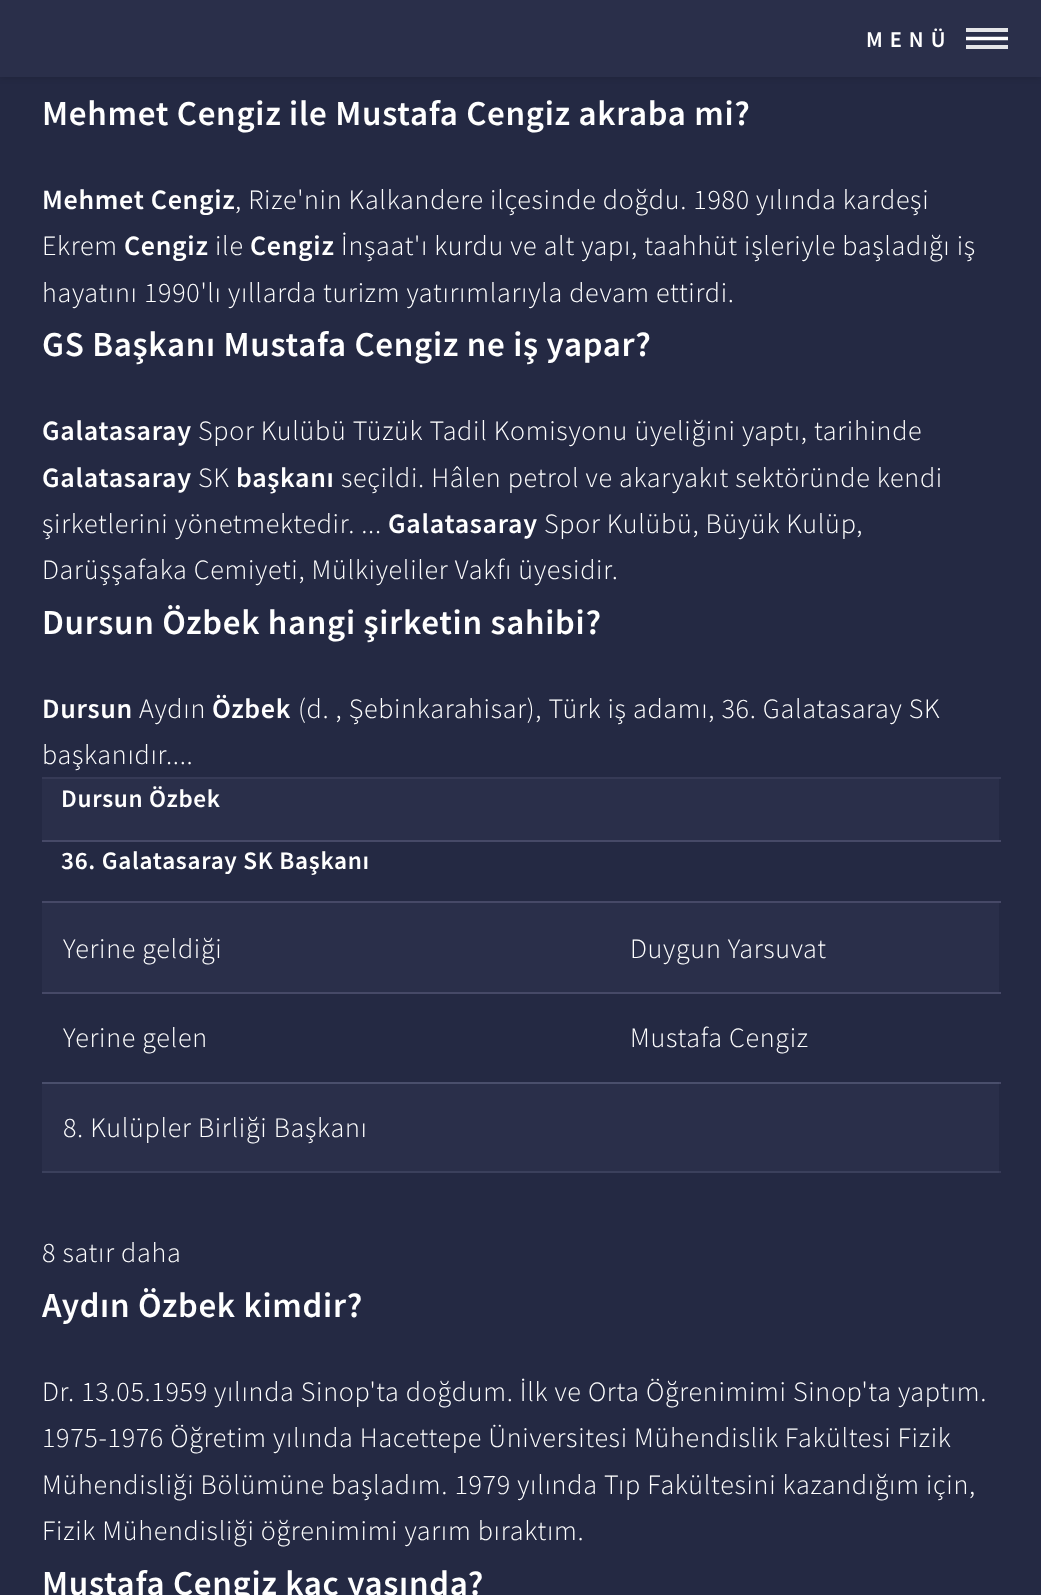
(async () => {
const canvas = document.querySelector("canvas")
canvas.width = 1041
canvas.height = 1595
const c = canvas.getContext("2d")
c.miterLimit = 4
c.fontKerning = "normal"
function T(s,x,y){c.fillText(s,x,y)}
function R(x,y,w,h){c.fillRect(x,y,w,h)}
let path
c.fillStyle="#242943"
R(0,0,1041,1595)
c.fillStyle="#363a56"
R(999,1171,2,2)
c.fillStyle="#464967"
R(999,1082,2,2)
c.fillStyle="#00000026"
c.filter="blur(3.5px)"
c.beginPath()
c.rect(0,0,1041,77)
c.fill()
c.filter="none"
c.fillStyle="#2a2f4a"
R(0,0,1041,77)
c.letterSpacing="7px"
c.font="600 22.5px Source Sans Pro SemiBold"
c.fillStyle="#fff"
T("MENÜ",866,47)
c.fillStyle="#e4e5e8"
R(966,28,42,4)
R(966,45,42,4)
path = new Path2D("M966 38.5h42m-42 0h42")
c.strokeStyle="#fff"
c.lineWidth=3.5
c.stroke(path)
c.letterSpacing="0.7px"
c.font="600 35px Source Sans Pro SemiBold"
c.fillStyle="#fff"
T("Mehmet Cengiz ile Mustafa Cengiz akraba mi?",42,125)
c.font="600 28px Source Sans Pro SemiBold"
T("Mehmet Cengiz",42,209)
c.font="300 28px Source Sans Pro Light"
T(", Rize'nin Kalkandere ilçesinde doğdu. 1980 yılında kardeşi",235,209)
T("Ekrem",42,255)
c.font="600 28px Source Sans Pro SemiBold"
T("Cengiz",124,255)
c.font="300 28px Source Sans Pro Light"
T("ile",215,255)
c.font="600 28px Source Sans Pro SemiBold"
T("Cengiz",250,255)
c.font="300 28px Source Sans Pro Light"
T("İnşaat'ı kurdu ve alt yapı, taahhüt işleriyle başladığı iş",341,255)
T("hayatını 1990'lı yıllarda turizm yatırımlarıyla devam ettirdi.",42,302)
c.font="600 35px Source Sans Pro SemiBold"
T("GS Başkanı Mustafa Cengiz ne iş yapar?",42,356)
c.font="600 28px Source Sans Pro SemiBold"
T("Galatasaray",42,440)
c.font="300 28px Source Sans Pro Light"
T("Spor Kulübü Tüzük Tadil Komisyonu üyeliğini yaptı, tarihinde",198,440)
c.font="600 28px Source Sans Pro SemiBold"
T("Galatasaray",42,487)
c.font="300 28px Source Sans Pro Light"
T("SK",198,487)
c.font="600 28px Source Sans Pro SemiBold"
T("başkanı",236,487)
c.font="300 28px Source Sans Pro Light"
T("seçildi. Hâlen petrol ve akaryakıt sektöründe kendi",341,487)
T("şirketlerini yönetmektedir. ...",42,533)
c.font="600 28px Source Sans Pro SemiBold"
T("Galatasaray",388,533)
c.font="300 28px Source Sans Pro Light"
T("Spor Kulübü, Büyük Kulüp,",544,533)
T("Darüşşafaka Cemiyeti, Mülkiyeliler Vakfı üyesidir.",42,579)
c.font="600 35px Source Sans Pro SemiBold"
T("Dursun Özbek hangi şirketin sahibi?",42,634)
c.font="600 28px Source Sans Pro SemiBold"
T("Dursun",42,718)
c.font="300 28px Source Sans Pro Light"
T("Aydın",139,718)
c.font="600 28px Source Sans Pro SemiBold"
T("Özbek",212,718)
c.font="300 28px Source Sans Pro Light"
T("(d. , Şebinkarahisar), Türk iş adamı, 36. Galatasaray SK",298,718)
T("başkanıdır....",42,764)
c.fillStyle="#2a2f4a"
R(42,779,957,61)
c.fillStyle="#363a56"
R(42,777,959,2)
c.fillStyle="#464967"
R(42,840,959,2)
c.font="600 25.25px Source Sans Pro SemiBold"
c.fillStyle="#fff"
T("Dursun Özbek",61,807)
c.fillStyle="#464967"
R(42,901,959,2)
c.fillStyle="#fff"
T("36. Galatasaray SK Başkanı",61,869)
c.fillStyle="#2a2f4a"
R(42,903,957,89)
c.fillStyle="#464967"
R(42,992,959,2)
c.font="300 28px Source Sans Pro Light"
c.fillStyle="#fff"
T("Yerine geldiği",63,958)
T("Duygun Yarsuvat",630,958)
T("Yerine gelen",63,1047)
T("Mustafa Cengiz",630,1047)
c.fillStyle="#2a2f4a"
R(42,1084,957,87)
c.fillStyle="#3b405c"
R(42,1171,957,2)
c.fillStyle="#4a4f6c"
R(42,1082,957,2)
c.fillStyle="#fff"
T("8. Kulüpler Birliği Başkanı",63,1137)
T("8 satır daha",42,1262)
c.font="600 35px Source Sans Pro SemiBold"
T("Aydın Özbek kimdir?",42,1317)
c.font="300 28px Source Sans Pro Light"
T("Dr. 13.05.1959 yılında Sinop'ta doğdum. İlk ve Orta Öğrenimimi Sinop'ta yaptım.",42,1401)
T("1975-1976 Öğretim yılında Hacettepe Üniversitesi Mühendislik Fakültesi Fizik",42,1447)
T("Mühendisliği Bölümüne başladım. 1979 yılında Tıp Fakültesini kazandığım için,",42,1494)
T("Fizik Mühendisliği öğrenimimi yarım bıraktım.",42,1540)
c.font="600 35px Source Sans Pro SemiBold"
T("Mustafa Cengiz kaç yaşında?",42,1595)
})()
